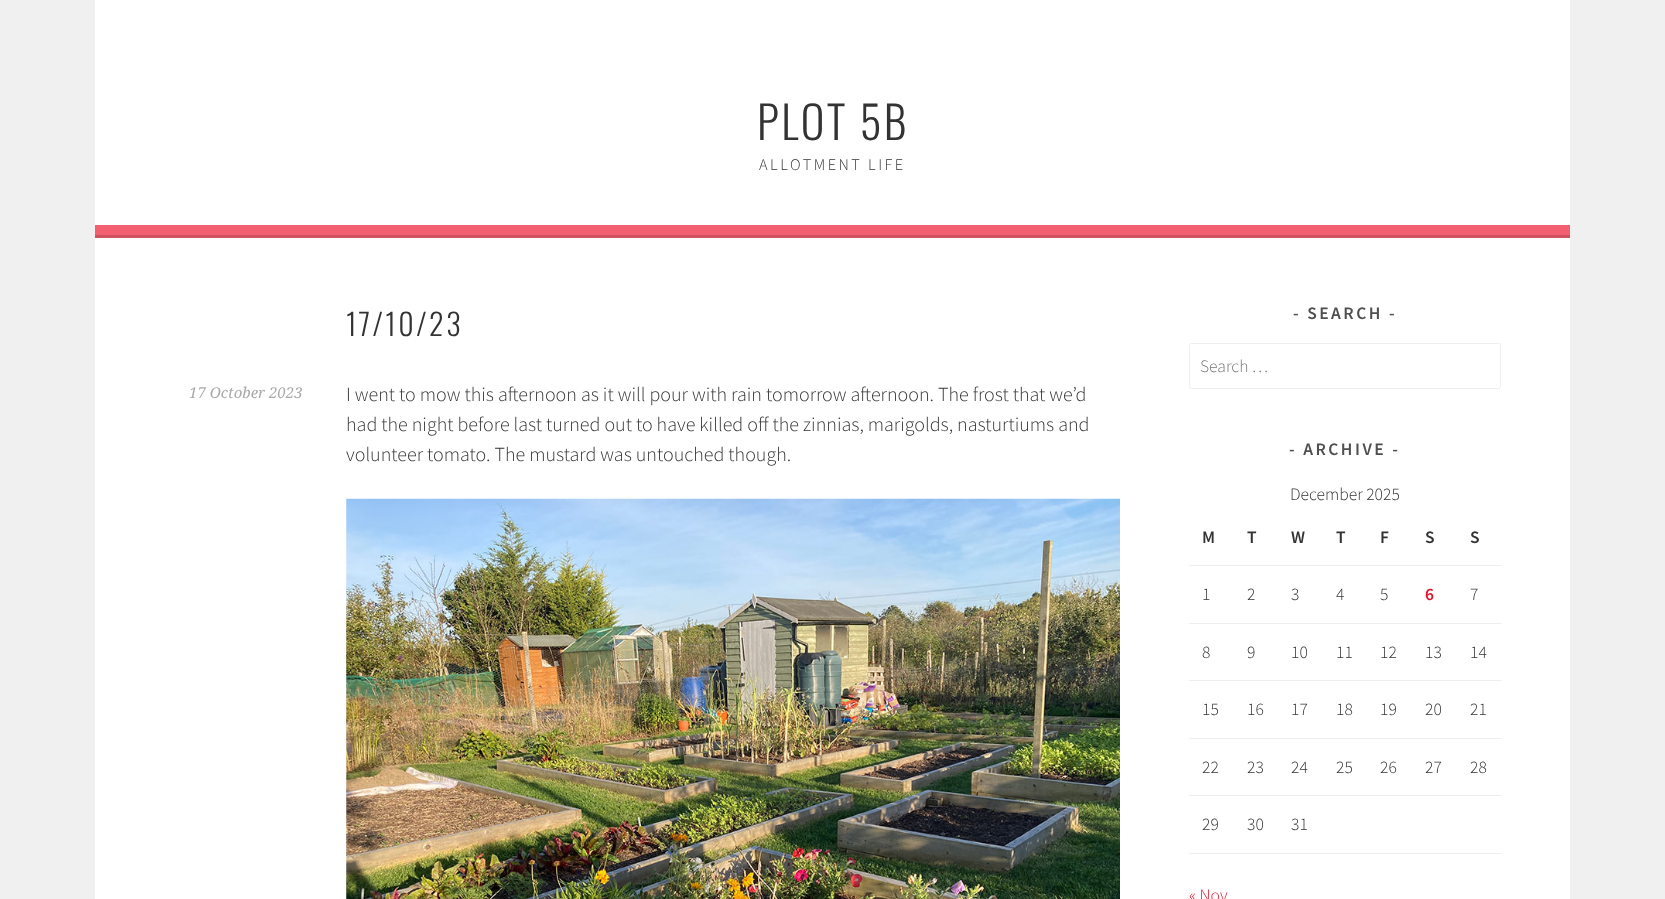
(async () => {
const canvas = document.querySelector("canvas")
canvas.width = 1665
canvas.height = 899
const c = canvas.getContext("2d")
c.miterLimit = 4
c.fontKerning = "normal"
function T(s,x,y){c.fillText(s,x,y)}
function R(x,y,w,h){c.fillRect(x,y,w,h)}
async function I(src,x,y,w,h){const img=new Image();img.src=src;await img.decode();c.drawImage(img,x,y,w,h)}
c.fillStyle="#f0f0f0"
R(0,0,1665,899)
c.fillStyle="#fff"
R(95,0,1475,225)
c.letterSpacing="2.5px"
c.font="300 45px Oswald"
c.fillStyle="#333"
T("PLOT 5B",757,140)
c.font="300 16.25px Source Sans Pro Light"
T("ALLOTMENT LIFE",759,170)
c.fillStyle="#f25f70"
R(95,225,1475,10)
c.fillStyle="#ce515f"
R(95,235,1475,3)
c.fillStyle="#fff"
R(95,238,1475,661)
c.font="300 30px Oswald"
c.fillStyle="#333"
T("17/10/23",346,336)
c.letterSpacing="0px"
c.font="italic 15px Droid Serif"
c.fillStyle="#aaa"
T("17 October 2023",189,398)
c.font="300 20px Source Sans Pro Light"
c.fillStyle="#333"
T("I went to mow this afternoon as it will pour with rain tomorrow afternoon. The frost that we’d",346,401)
T("had the night before last turned out to have killed off the zinnias, marigolds, nasturtiums and",346,431)
T("volunteer tomato. The mustard was untouched though.",346,461)
await I("1.png",346,498,774,401)
c.letterSpacing="2.5px"
c.font="600 17.5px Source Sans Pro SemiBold"
c.fillStyle="#4f4f4f"
T("- SEARCH -",1293,319)
c.beginPath()
c.roundRect(1189.5,343.5,311,45,2)
c.strokeStyle="#eee"
c.stroke()
c.letterSpacing="0px"
c.font="300 17.5px Source Sans Pro Light"
c.fillStyle="#757575"
T("Search …",1200,372)
c.letterSpacing="2.5px"
c.font="600 17.5px Source Sans Pro SemiBold"
c.fillStyle="#4f4f4f"
T("- ARCHIVE -",1289,455)
c.fillStyle="#eee"
R(1189,853,312,1)
c.letterSpacing="0px"
c.font="300 17.5px Source Sans Pro Light"
c.fillStyle="#333"
T("December 2025",1290,500)
c.font="600 17.5px Source Sans Pro SemiBold"
T("M",1202,543)
T("T",1247,543)
T("W",1291,543)
T("T",1336,543)
T("F",1380,543)
T("S",1425,543)
T("S",1470,543)
c.fillStyle="#eee"
R(1189,565,312,1)
c.font="300 17.5px Source Sans Pro Light"
c.fillStyle="#333"
T("1",1202,600)
T("2",1247,600)
T("3",1291,600)
T("4",1336,600)
T("5",1380,600)
c.font="600 17.5px Source Sans Pro SemiBold"
c.fillStyle="#e1122a"
T("6",1425,600)
c.font="300 17.5px Source Sans Pro Light"
c.fillStyle="#333"
T("7",1470,600)
c.fillStyle="#eee"
R(1189,623,312,1)
c.fillStyle="#333"
T("8",1202,658)
T("9",1247,658)
T("10",1291,658)
T("11",1336,658)
T("12",1380,658)
T("13",1425,658)
T("14",1470,658)
c.fillStyle="#eee"
R(1189,680,312,1)
c.fillStyle="#333"
T("15",1202,715)
T("16",1247,715)
T("17",1291,715)
T("18",1336,715)
T("19",1380,715)
T("20",1425,715)
T("21",1470,715)
c.fillStyle="#eee"
R(1189,738,312,1)
c.fillStyle="#333"
T("22",1202,773)
T("23",1247,773)
T("24",1291,773)
T("25",1336,773)
T("26",1380,773)
T("27",1425,773)
T("28",1470,773)
c.fillStyle="#eee"
R(1189,795,312,1)
c.fillStyle="#333"
T("29",1202,830)
T("30",1247,830)
T("31",1291,830)
c.fillStyle="#e1122a"
T("« Nov",1189,901)
})()
